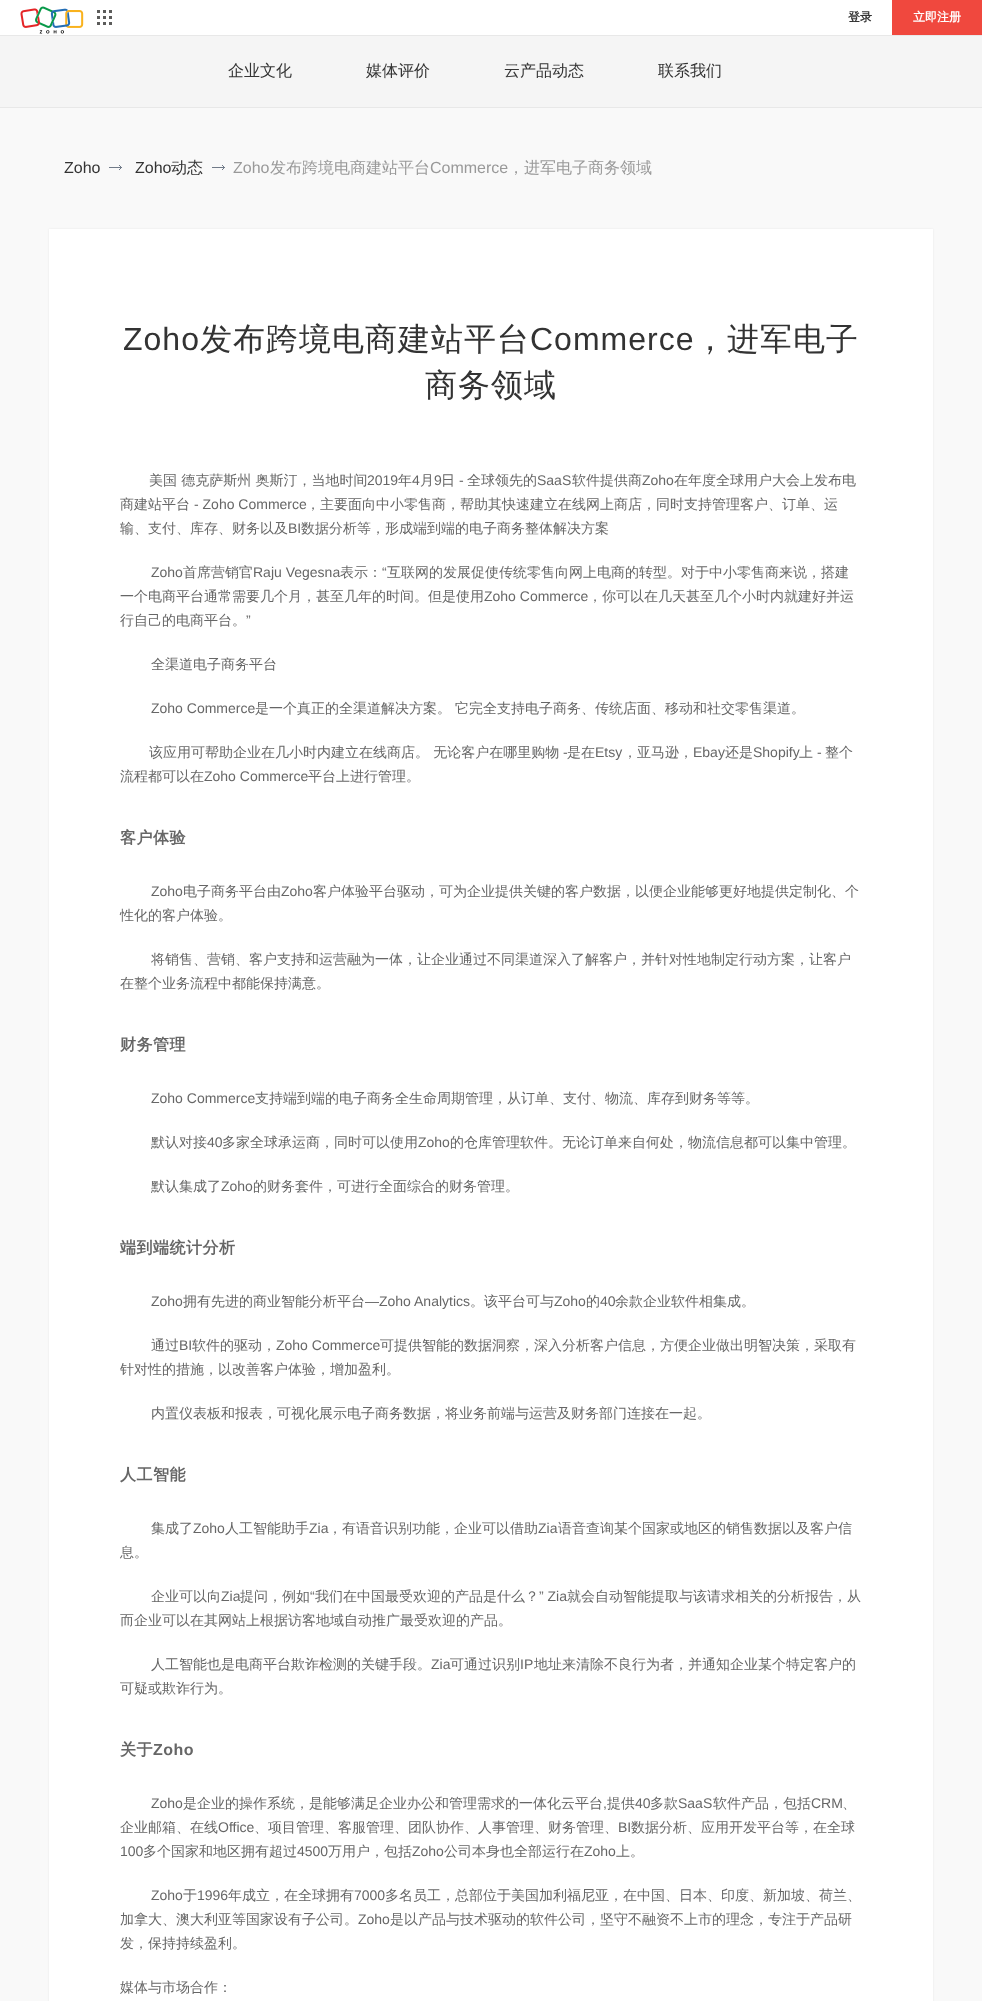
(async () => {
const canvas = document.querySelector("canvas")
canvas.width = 982
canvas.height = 2001
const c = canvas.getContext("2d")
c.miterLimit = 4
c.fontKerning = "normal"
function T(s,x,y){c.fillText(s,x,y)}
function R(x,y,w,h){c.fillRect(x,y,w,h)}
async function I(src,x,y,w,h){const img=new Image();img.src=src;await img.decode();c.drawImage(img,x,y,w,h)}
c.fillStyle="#fff"
R(0,0,982,2001)
c.fillStyle="#e8e8e8"
R(0,35,982,1)
await I("1.png",20,6,64,28)
await I("2.png",97,10,15,15)
c.font="bold 12px WenQuanYi Zen Hei"
c.fillStyle="#333"
T("登录",848,21)
c.fillStyle="#f0483e"
R(892,0,90,35)
c.fillStyle="#fff"
T("立即注册",913,21)
c.fillStyle="#f5f5f5"
R(0,36,982,71)
c.fillStyle="#e8e8e8"
R(0,107,982,1)
c.font="500 16px WenQuanYi Zen Hei"
c.fillStyle="#333"
T("企业文化",228,76)
T("媒体评价",366,76)
T("云产品动态",504,76)
T("联系我们",658,76)
c.fillStyle="#f9f9f9"
R(0,108,982,1893)
c.font="16px Liberation Sans"
c.fillStyle="#333"
T("Zoho",64,173)
await I("3.png",109,165,13,5)
T("Zoho",135,173)
c.font="500 16px WenQuanYi Zen Hei"
T("动态",171,173)
await I("3.png",212,165,13,5)
c.font="16px Liberation Sans"
c.fillStyle="#999"
T("Zoho",233,173)
c.font="500 16px WenQuanYi Zen Hei"
T("发布跨境电商建站平台",270,173)
c.font="16px Liberation Sans"
T("Commerce",430,173)
c.font="500 16px WenQuanYi Zen Hei"
T("，进军电子商务领域",508,173)
c.fillStyle="#00000012"
c.filter="blur(1px)"
c.beginPath()
c.rect(49,229,884,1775)
c.fill()
c.filter="none"
c.fillStyle="#fff"
R(49,229,884,1772)
c.letterSpacing="1px"
c.font="32px Liberation Sans"
c.fillStyle="#333"
T("Zoho",123,350)
c.font="500 32px WenQuanYi Zen Hei"
T("发布跨境电商建站平台",200,350)
c.font="32px Liberation Sans"
T("Commerce",530,350)
c.font="500 32px WenQuanYi Zen Hei"
T("，进军电子",694,350)
T("商务领域",425,396)
c.letterSpacing="0px"
c.font="500 14px WenQuanYi Zen Hei"
c.fillStyle="#666"
T("美国 德克萨斯州 奥斯汀，当地时间",149,485)
c.font="14px Liberation Sans"
T("2019",367,485)
c.font="500 14px WenQuanYi Zen Hei"
T("年",398,485)
c.font="14px Liberation Sans"
T("4",412,485)
c.font="500 14px WenQuanYi Zen Hei"
T("月",420,485)
c.font="14px Liberation Sans"
T("9",434,485)
c.font="500 14px WenQuanYi Zen Hei"
T("日",441,485)
c.font="14px Liberation Sans"
T("-",459,485)
c.font="500 14px WenQuanYi Zen Hei"
T("全球领先的",467,485)
c.font="14px Liberation Sans"
T("SaaS",537,485)
c.font="500 14px WenQuanYi Zen Hei"
T("软件提供商",572,485)
c.font="14px Liberation Sans"
T("Zoho",642,485)
c.font="500 14px WenQuanYi Zen Hei"
T("在年度全球用户大会上发布电",674,485)
T("商建站平台",120,509)
c.font="14px Liberation Sans"
T("- Zoho Commerce",194,509)
c.font="500 14px WenQuanYi Zen Hei"
T("，主要面向中小零售商，帮助其快速建立在线网上商店，同时支持管理客户、订单、运",306,509)
T("输、支付、库存、财务以及",120,533)
c.font="14px Liberation Sans"
T("BI",288,533)
c.font="500 14px WenQuanYi Zen Hei"
T("数据分析等，形成端到端的电子商务整体解决方案",301,533)
c.font="14px Liberation Sans"
T("Zoho",151,577)
c.font="500 14px WenQuanYi Zen Hei"
T("首席营销官",183,577)
c.font="14px Liberation Sans"
T("Raju Vegesna",253,577)
c.font="500 14px WenQuanYi Zen Hei"
T("表示：",340,577)
c.font="14px Liberation Sans"
T("“",382,577)
c.font="500 14px WenQuanYi Zen Hei"
T("互联网的发展促使传统零售向网上电商的转型。对于中小零售商来说，搭建",387,577)
T("一个电商平台通常需要几个月，甚至几年的时间。但是使用",120,601)
c.font="14px Liberation Sans"
T("Zoho Commerce",484,601)
c.font="500 14px WenQuanYi Zen Hei"
T("，你可以在几天甚至几个小时内就建好并运",588,601)
T("行自己的电商平台。",120,625)
c.font="14px Liberation Sans"
T("”",246,625)
c.font="500 14px WenQuanYi Zen Hei"
T("全渠道电子商务平台",151,669)
c.font="14px Liberation Sans"
T("Zoho Commerce",151,713)
c.font="500 14px WenQuanYi Zen Hei"
T("是一个真正的全渠道解决方案。",255,713)
T("它完全支持电子商务、传统店面、移动和社交零售渠道。",455,713)
T("该应用可帮助企业在几小时内建立在线商店。 无论客户在哪里购物",149,757)
c.font="14px Liberation Sans"
T("-",563,757)
c.font="500 14px WenQuanYi Zen Hei"
T("是在",567,757)
c.font="14px Liberation Sans"
T("Etsy",595,757)
c.font="500 14px WenQuanYi Zen Hei"
T("，亚马逊，",623,757)
c.font="14px Liberation Sans"
T("Ebay",693,757)
c.font="500 14px WenQuanYi Zen Hei"
T("还是",725,757)
c.font="14px Liberation Sans"
T("Shopify",753,757)
c.font="500 14px WenQuanYi Zen Hei"
T("上",799,757)
c.font="14px Liberation Sans"
T("-",817,757)
c.font="500 14px WenQuanYi Zen Hei"
T("整个",825,757)
T("流程都可以在",120,781)
c.font="14px Liberation Sans"
T("Zoho Commerce",204,781)
c.font="500 14px WenQuanYi Zen Hei"
T("平台上进行管理。",308,781)
c.letterSpacing="0.5px"
c.font="bold 16px WenQuanYi Zen Hei"
T("客户体验",120,843)
c.letterSpacing="0px"
c.font="14px Liberation Sans"
T("Zoho",151,896)
c.font="500 14px WenQuanYi Zen Hei"
T("电子商务平台由",183,896)
c.font="14px Liberation Sans"
T("Zoho",281,896)
c.font="500 14px WenQuanYi Zen Hei"
T("客户体验平台驱动，可为企业提供关键的客户数据，以便企业能够更好地提供定制化、个",313,896)
T("性化的客户体验。",120,920)
T("将销售、营销、客户支持和运营融为一体，让企业通过不同渠道深入了解客户，并针对性地制定行动方案，让客户",151,964)
T("在整个业务流程中都能保持满意。",120,988)
c.letterSpacing="0.5px"
c.font="bold 16px WenQuanYi Zen Hei"
T("财务管理",120,1050)
c.letterSpacing="0px"
c.font="14px Liberation Sans"
T("Zoho Commerce",151,1103)
c.font="500 14px WenQuanYi Zen Hei"
T("支持端到端的电子商务全生命周期管理，从订单、支付、物流、库存到财务等等。",255,1103)
T("默认对接",151,1147)
c.font="14px Liberation Sans"
T("40",207,1147)
c.font="500 14px WenQuanYi Zen Hei"
T("多家全球承运商，同时可以使用",222,1147)
c.font="14px Liberation Sans"
T("Zoho",418,1147)
c.font="500 14px WenQuanYi Zen Hei"
T("的仓库管理软件。无论订单来自何处，物流信息都可以集中管理。",450,1147)
T("默认集成了",151,1191)
c.font="14px Liberation Sans"
T("Zoho",221,1191)
c.font="500 14px WenQuanYi Zen Hei"
T("的财务套件，可进行全面综合的财务管理。",253,1191)
c.letterSpacing="0.5px"
c.font="bold 16px WenQuanYi Zen Hei"
T("端到端统计分析",120,1253)
c.letterSpacing="0px"
c.font="14px Liberation Sans"
T("Zoho",151,1306)
c.font="500 14px WenQuanYi Zen Hei"
T("拥有先进的商业智能分析平台",183,1306)
c.font="14px Liberation Sans"
T("—Zoho Analytics",365,1306)
c.font="500 14px WenQuanYi Zen Hei"
T("。该平台可与",470,1306)
c.font="14px Liberation Sans"
T("Zoho",554,1306)
c.font="500 14px WenQuanYi Zen Hei"
T("的",586,1306)
c.font="14px Liberation Sans"
T("40",600,1306)
c.font="500 14px WenQuanYi Zen Hei"
T("余款企业软件相集成。",615,1306)
T("通过",151,1350)
c.font="14px Liberation Sans"
T("BI",179,1350)
c.font="500 14px WenQuanYi Zen Hei"
T("软件的驱动，",192,1350)
c.font="14px Liberation Sans"
T("Zoho Commerce",276,1350)
c.font="500 14px WenQuanYi Zen Hei"
T("可提供智能的数据洞察，深入分析客户信息，方便企业做出明智决策，采取有",380,1350)
T("针对性的措施，以改善客户体验，增加盈利。",120,1374)
T("内置仪表板和报表，可视化展示电子商务数据，将业务前端与运营及财务部门连接在一起。",151,1418)
c.letterSpacing="0.5px"
c.font="bold 16px WenQuanYi Zen Hei"
T("人工智能",120,1480)
c.letterSpacing="0px"
c.font="500 14px WenQuanYi Zen Hei"
T("集成了",151,1533)
c.font="14px Liberation Sans"
T("Zoho",193,1533)
c.font="500 14px WenQuanYi Zen Hei"
T("人工智能助手",225,1533)
c.font="14px Liberation Sans"
T("Zia",309,1533)
c.font="500 14px WenQuanYi Zen Hei"
T("，有语音识别功能，企业可以借助",328,1533)
c.font="14px Liberation Sans"
T("Zia",538,1533)
c.font="500 14px WenQuanYi Zen Hei"
T("语音查询某个国家或地区的销售数据以及客户信",558,1533)
T("息。",120,1557)
T("企业可以向",151,1601)
c.font="14px Liberation Sans"
T("Zia",221,1601)
c.font="500 14px WenQuanYi Zen Hei"
T("提问，例如",240,1601)
c.font="14px Liberation Sans"
T("“",310,1601)
c.font="500 14px WenQuanYi Zen Hei"
T("我们在中国最受欢迎的产品是什么？",315,1601)
c.font="14px Liberation Sans"
T("” Zia",539,1601)
c.font="500 14px WenQuanYi Zen Hei"
T("就会自动智能提取与该请求相关的分析报告，从",567,1601)
T("而企业可以在其网站上根据访客地域自动推广最受欢迎的产品。",120,1625)
T("人工智能也是电商平台欺诈检测的关键手段。",151,1669)
c.font="14px Liberation Sans"
T("Zia",431,1669)
c.font="500 14px WenQuanYi Zen Hei"
T("可通过识别",450,1669)
c.font="14px Liberation Sans"
T("IP",520,1669)
c.font="500 14px WenQuanYi Zen Hei"
T("地址来清除不良行为者，并通知企业某个特定客户的",534,1669)
T("可疑或欺诈行为。",120,1693)
c.letterSpacing="0.5px"
c.font="bold 16px WenQuanYi Zen Hei"
T("关于",120,1755)
c.font="bold 16px Liberation Sans"
T("Zoho",153,1755)
c.letterSpacing="0px"
c.font="14px Liberation Sans"
T("Zoho",151,1808)
c.font="500 14px WenQuanYi Zen Hei"
T("是企业的操作系统，是能够满足企业办公和管理需求的一体化云平台",183,1808)
c.font="14px Liberation Sans"
T(",",603,1808)
c.font="500 14px WenQuanYi Zen Hei"
T("提供",607,1808)
c.font="14px Liberation Sans"
T("40",635,1808)
c.font="500 14px WenQuanYi Zen Hei"
T("多款",650,1808)
c.font="14px Liberation Sans"
T("SaaS",678,1808)
c.font="500 14px WenQuanYi Zen Hei"
T("软件产品，包括",713,1808)
c.font="14px Liberation Sans"
T("CRM",811,1808)
c.font="500 14px WenQuanYi Zen Hei"
T("、",842,1808)
T("企业邮箱、在线",120,1832)
c.font="14px Liberation Sans"
T("Office",218,1832)
c.font="500 14px WenQuanYi Zen Hei"
T("、项目管理、客服管理、团队协作、人事管理、财务管理、",254,1832)
c.font="14px Liberation Sans"
T("BI",618,1832)
c.font="500 14px WenQuanYi Zen Hei"
T("数据分析、应用开发平台等，在全球",631,1832)
c.font="14px Liberation Sans"
T("100",120,1856)
c.font="500 14px WenQuanYi Zen Hei"
T("多个国家和地区拥有超过",143,1856)
c.font="14px Liberation Sans"
T("4500",297,1856)
c.font="500 14px WenQuanYi Zen Hei"
T("万用户，包括",328,1856)
c.font="14px Liberation Sans"
T("Zoho",412,1856)
c.font="500 14px WenQuanYi Zen Hei"
T("公司本身也全部运行在",444,1856)
c.font="14px Liberation Sans"
T("Zoho",584,1856)
c.font="500 14px WenQuanYi Zen Hei"
T("上。",616,1856)
c.font="14px Liberation Sans"
T("Zoho",151,1900)
c.font="500 14px WenQuanYi Zen Hei"
T("于",183,1900)
c.font="14px Liberation Sans"
T("1996",197,1900)
c.font="500 14px WenQuanYi Zen Hei"
T("年成立，在全球拥有",228,1900)
c.font="14px Liberation Sans"
T("7000",354,1900)
c.font="500 14px WenQuanYi Zen Hei"
T("多名员工，总部位于美国加利福尼亚，在中国、日本、印度、新加坡、荷兰、",385,1900)
T("加拿大、澳大利亚等国家设有子公司。",120,1924)
c.font="14px Liberation Sans"
T("Zoho",358,1924)
c.font="500 14px WenQuanYi Zen Hei"
T("是以产品与技术驱动的软件公司，坚守不融资不上市的理念，专注于产品研",390,1924)
T("发，保持持续盈利。",120,1948)
T("媒体与市场合作：",120,1992)
})()
